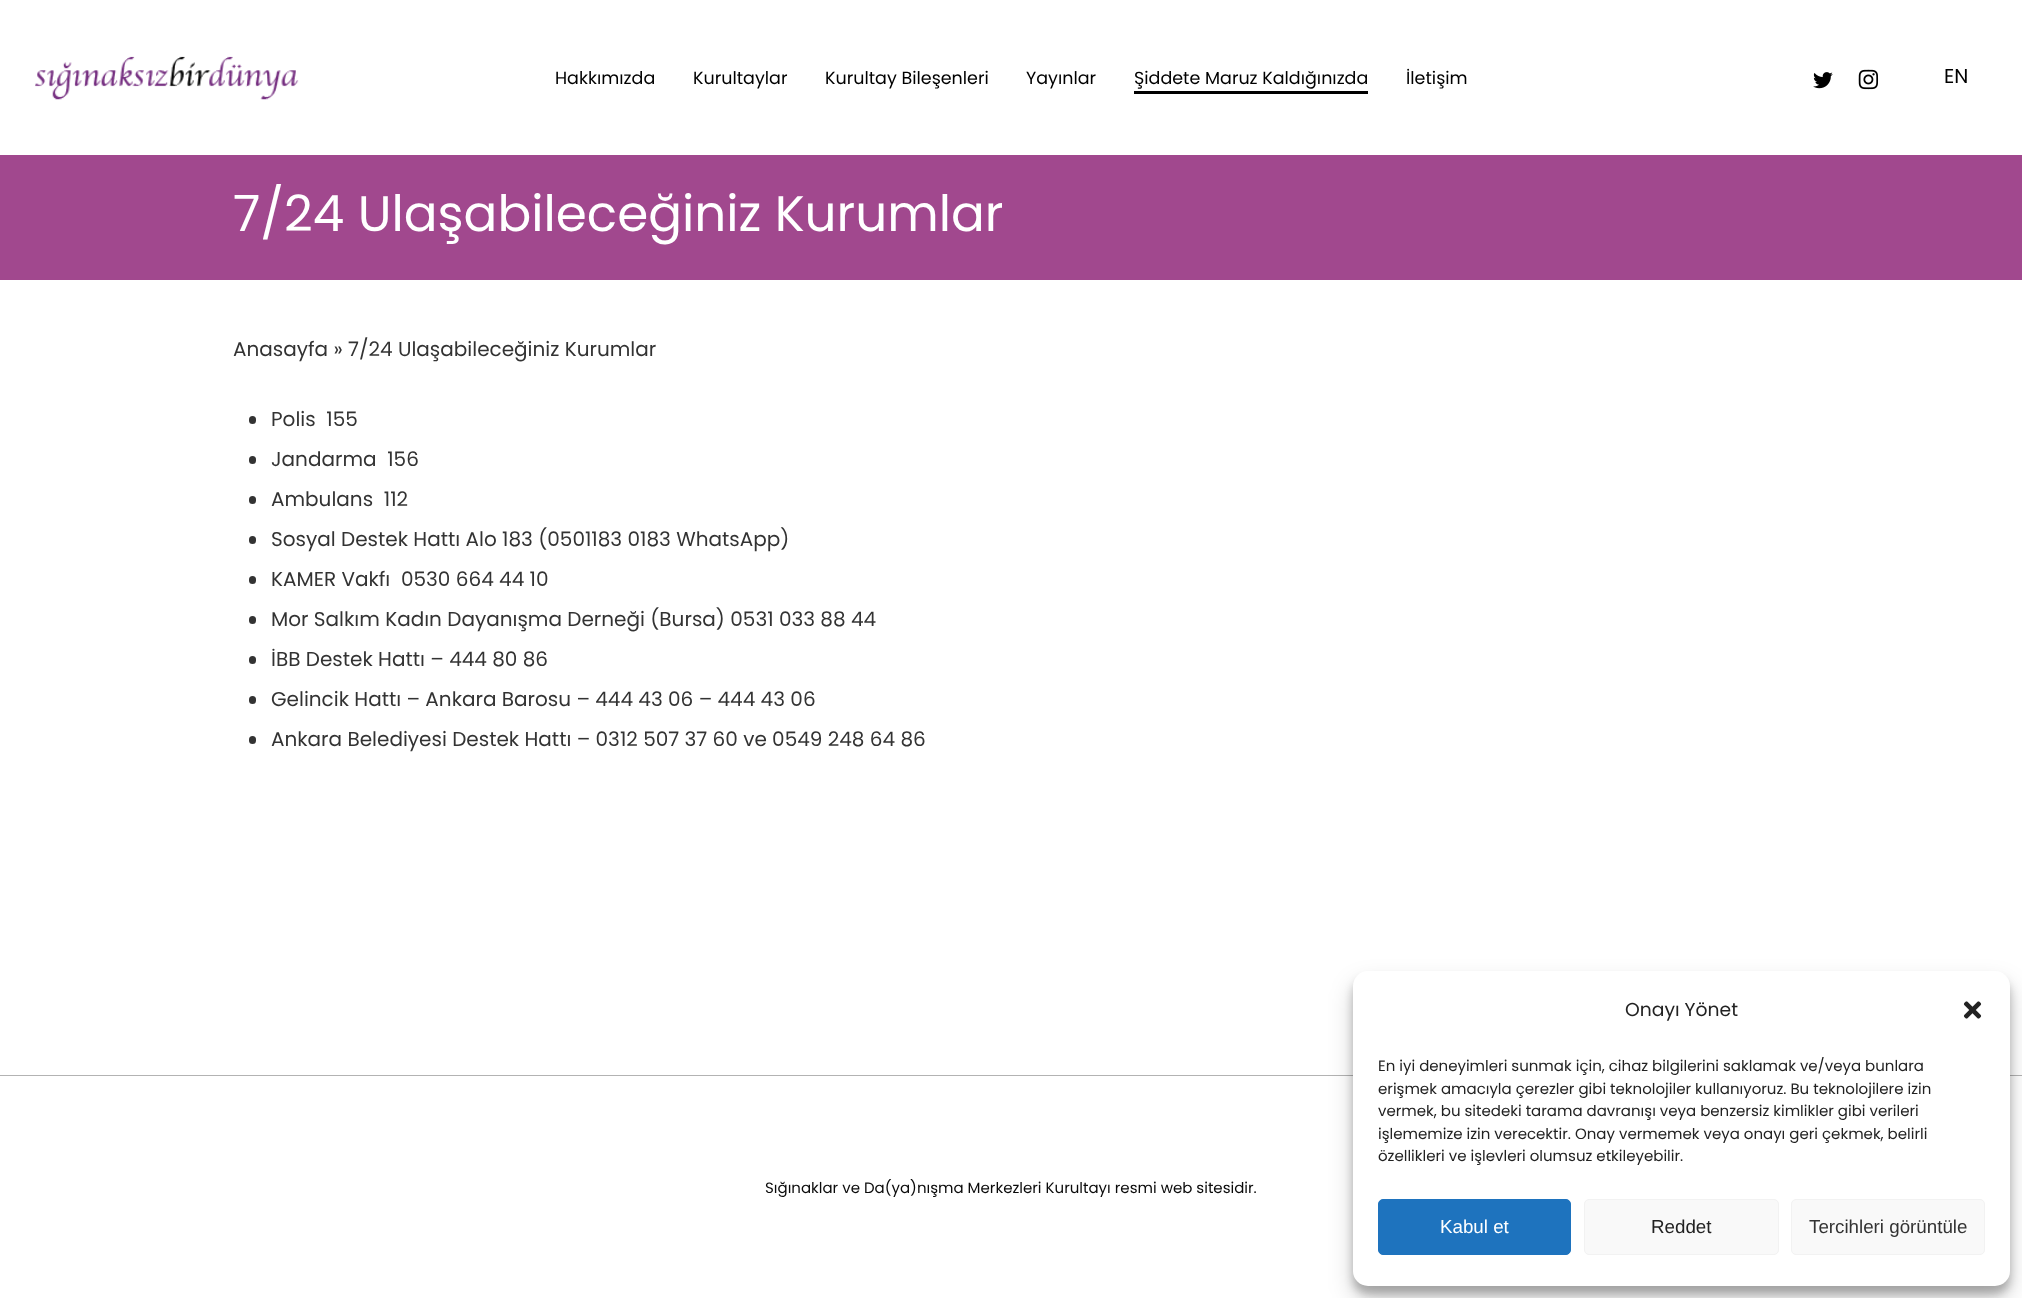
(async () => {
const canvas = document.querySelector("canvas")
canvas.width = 2022
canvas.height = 1298
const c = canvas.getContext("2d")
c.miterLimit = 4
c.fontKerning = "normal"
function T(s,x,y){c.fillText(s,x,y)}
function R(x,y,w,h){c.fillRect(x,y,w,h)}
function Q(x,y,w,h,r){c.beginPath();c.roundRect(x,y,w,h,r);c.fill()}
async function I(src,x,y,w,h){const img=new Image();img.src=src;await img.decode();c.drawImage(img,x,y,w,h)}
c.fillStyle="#fff"
R(0,0,2022,1298)
await I("1.png",35,56,264,44)
c.font="17.5px Poppins"
c.fillStyle="#000"
T("Hakkımızda",555,84)
T("Kurultaylar",693,84)
T("Kurultay Bileşenleri",825,84)
T("Yayınlar",1026,84)
T("Şiddete Maruz Kaldığınızda",1134,84)
R(1134,91,234,3)
T("İletişim",1406,84)
await I("2.png",1813,72,20,17)
await I("3.png",1858,69,21,21)
c.font="20px Poppins"
T("EN",1944,83)
c.fillStyle="#a1488e"
R(0,155,2022,125)
c.font="50px Poppins"
c.fillStyle="#fff"
T("7/24 Ulaşabileceğiniz Kurumlar",233,231)
c.font="20px Poppins"
c.fillStyle="#333"
T("Anasayfa » 7/24 Ulaşabileceğiniz Kurumlar",233,356)
Q(249,416,7,8,3.5)
T("Polis  155",271,426)
Q(249,456,7,8,3.5)
T("Jandarma  156",271,466)
Q(249,496,7,8,3.5)
T("Ambulans  112",271,506)
Q(249,536,7,8,3.5)
T("Sosyal Destek Hattı Alo 183 (0501183 0183 WhatsApp)",271,546)
Q(249,576,7,8,3.5)
T("KAMER Vakfı  0530 664 44 10",271,586)
Q(249,616,7,8,3.5)
T("Mor Salkım Kadın Dayanışma Derneği (Bursa) 0531 033 88 44",271,626)
Q(249,656,7,8,3.5)
T("İBB Destek Hattı – 444 80 86",271,666)
Q(249,696,7,8,3.5)
T("Gelincik Hattı – Ankara Barosu – 444 43 06 – 444 43 06",271,706)
Q(249,736,7,8,3.5)
T("Ankara Belediyesi Destek Hattı – 0312 507 37 60 ve 0549 248 64 86",271,746)
c.fillStyle="#b3b3b3"
R(0,1075,2022,1)
c.font="15px Poppins"
c.fillStyle="#0a0a0a"
T("Sığınaklar ve Da(ya)nışma Merkezleri Kurultayı resmi web sitesidir.",765,1193)
c.fillStyle="#0000003b"
c.filter="blur(4px)"
c.beginPath()
c.roundRect(1353,979,657,315,15)
c.fill()
c.filter="none"
c.fillStyle="#00000030"
c.filter="blur(12.5px)"
c.beginPath()
c.roundRect(1353,984,657,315,15)
c.fill()
c.filter="none"
c.fillStyle="#fff"
Q(1353,971,657,315,15)
c.font="18.75px Poppins"
c.fillStyle="#222"
T("Onayı Yönet",1625,1016)
await I("4.png",1963,1001,19,18)
c.font="15px Poppins"
T("En iyi deneyimleri sunmak için, cihaz bilgilerini saklamak ve/veya bunlara",1378,1071)
T("erişmek amacıyla çerezler gibi teknolojiler kullanıyoruz. Bu teknolojilere izin",1378,1094)
T("vermek, bu sitedeki tarama davranışı veya benzersiz kimlikler gibi verileri",1378,1116)
T("işlememize izin verecektir. Onay vermemek veya onayı geri çekmek, belirli",1378,1139)
T("özellikleri ve işlevleri olumsuz etkileyebilir.",1378,1161)
c.fillStyle="#1e73be"
c.beginPath()
c.roundRect(1378.5,1199.5,192,55,4.5)
c.fill()
c.strokeStyle="#1e73be"
c.stroke()
c.font="18.75px Liberation Sans"
c.fillStyle="#fff"
T("Kabul et",1440,1233)
c.fillStyle="#f9f9f9"
c.beginPath()
c.roundRect(1584.5,1199.5,194,55,4.5)
c.fill()
c.strokeStyle="#f2f2f2"
c.stroke()
c.fillStyle="#222"
T("Reddet",1651,1233)
c.fillStyle="#f9f9f9"
c.beginPath()
c.roundRect(1791.5,1199.5,193,55,4.5)
c.fill()
c.stroke()
c.fillStyle="#333"
T("Tercihleri görüntüle",1809,1233)
})()
